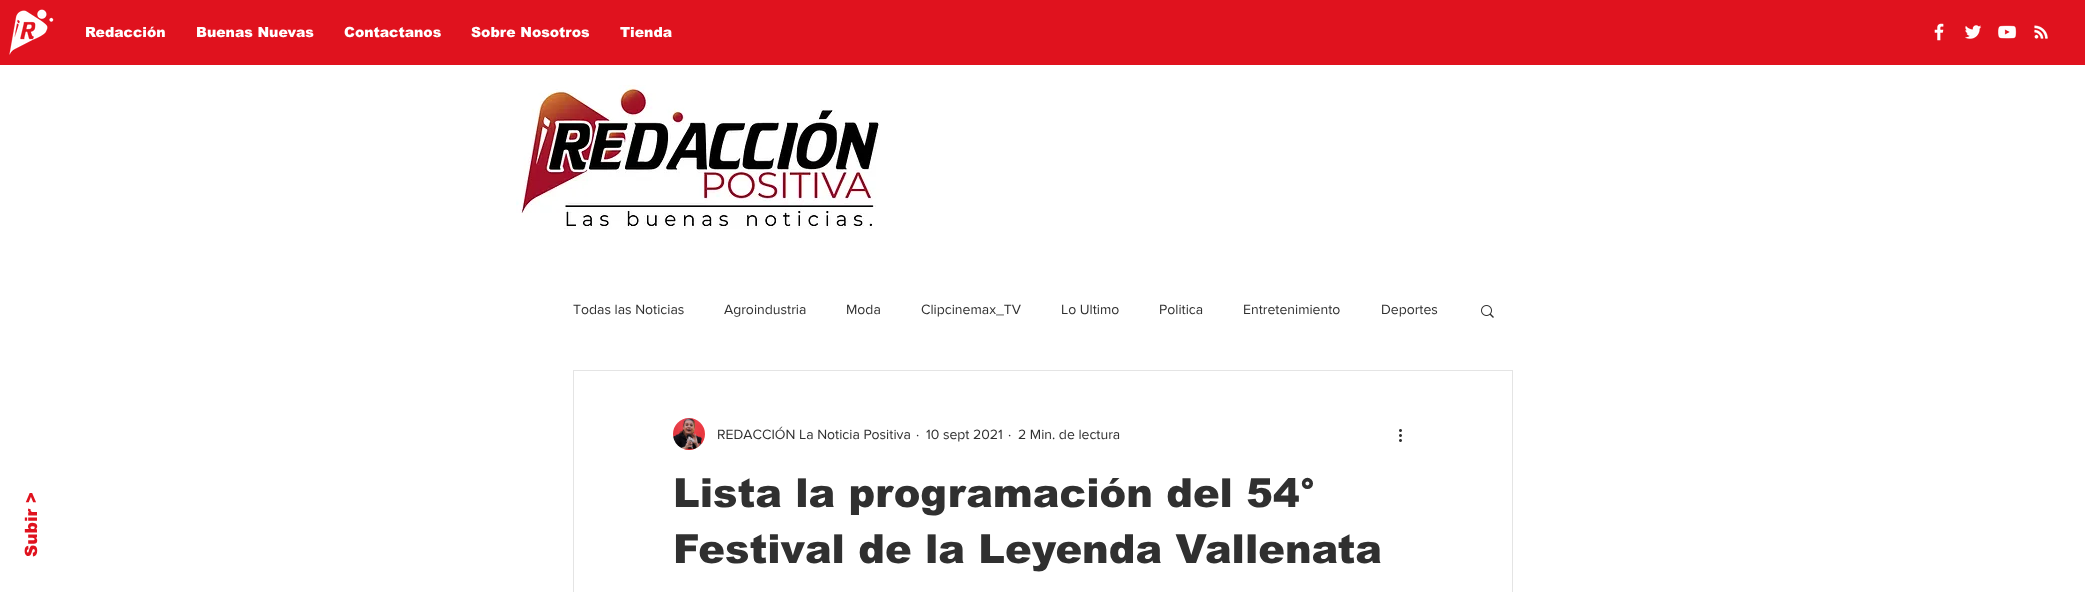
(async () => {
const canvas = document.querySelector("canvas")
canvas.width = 2085
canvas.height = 592
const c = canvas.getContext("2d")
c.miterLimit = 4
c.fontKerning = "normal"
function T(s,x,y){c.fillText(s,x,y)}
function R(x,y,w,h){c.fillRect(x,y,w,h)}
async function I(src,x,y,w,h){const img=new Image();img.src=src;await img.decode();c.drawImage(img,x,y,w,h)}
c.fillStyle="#fff"
R(0,0,2085,592)
c.fillStyle="#e0121e"
R(0,0,2085,65)
await I("1.png",9,9,45,46)
c.font="900 14px arial"
c.fillStyle="#fff"
T("Redacción",85,37)
T("Buenas Nuevas",196,37)
T("Contactanos",344,37)
T("Sobre Nosotros",471,37)
T("Tienda",620,37)
await I("2.png",1934,23,10,18)
await I("3.png",1965,25,17,14)
await I("4.png",1998,25,19,14)
await I("5.png",2034,25,14,14)
await I("6.png",516,85,364,144)
c.font="900 17px arial"
c.fillStyle="#e0121e"
c.save()
c.translate(37,557)
c.rotate(-90 * Math.PI / 180)
c.fillText("Subir >",0,0)
c.restore()
c.font="14px 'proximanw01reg'"
c.fillStyle="#303030"
T("Todas las Noticias",573,314)
T("Agroindustria",724,314)
T("Moda",846,314)
T("Clipcinemax_TV",921,314)
T("Lo Ultimo",1061,314)
T("Politica",1159,314)
T("Entretenimiento",1243,314)
T("Deportes",1381,314)
await I("7.png",1481,305,13,13)
c.strokeStyle="#e4e4e4"
c.strokeRect(573.5,370.5,939,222)
await I("8.png",673,418,32,32)
T("REDACCIÓN La Noticia Positiva",717,439)
T("·",916,439)
T("10 sept 2021",926,439)
T("·",1008,439)
T("2 Min. de lectura",1018,439)
await I("9.png",1399,429,3,13)
c.font="900 40px arial"
T("Lista la programación del 54°",673,507)
T("Festival de la Leyenda Vallenata",673,563)
})()
